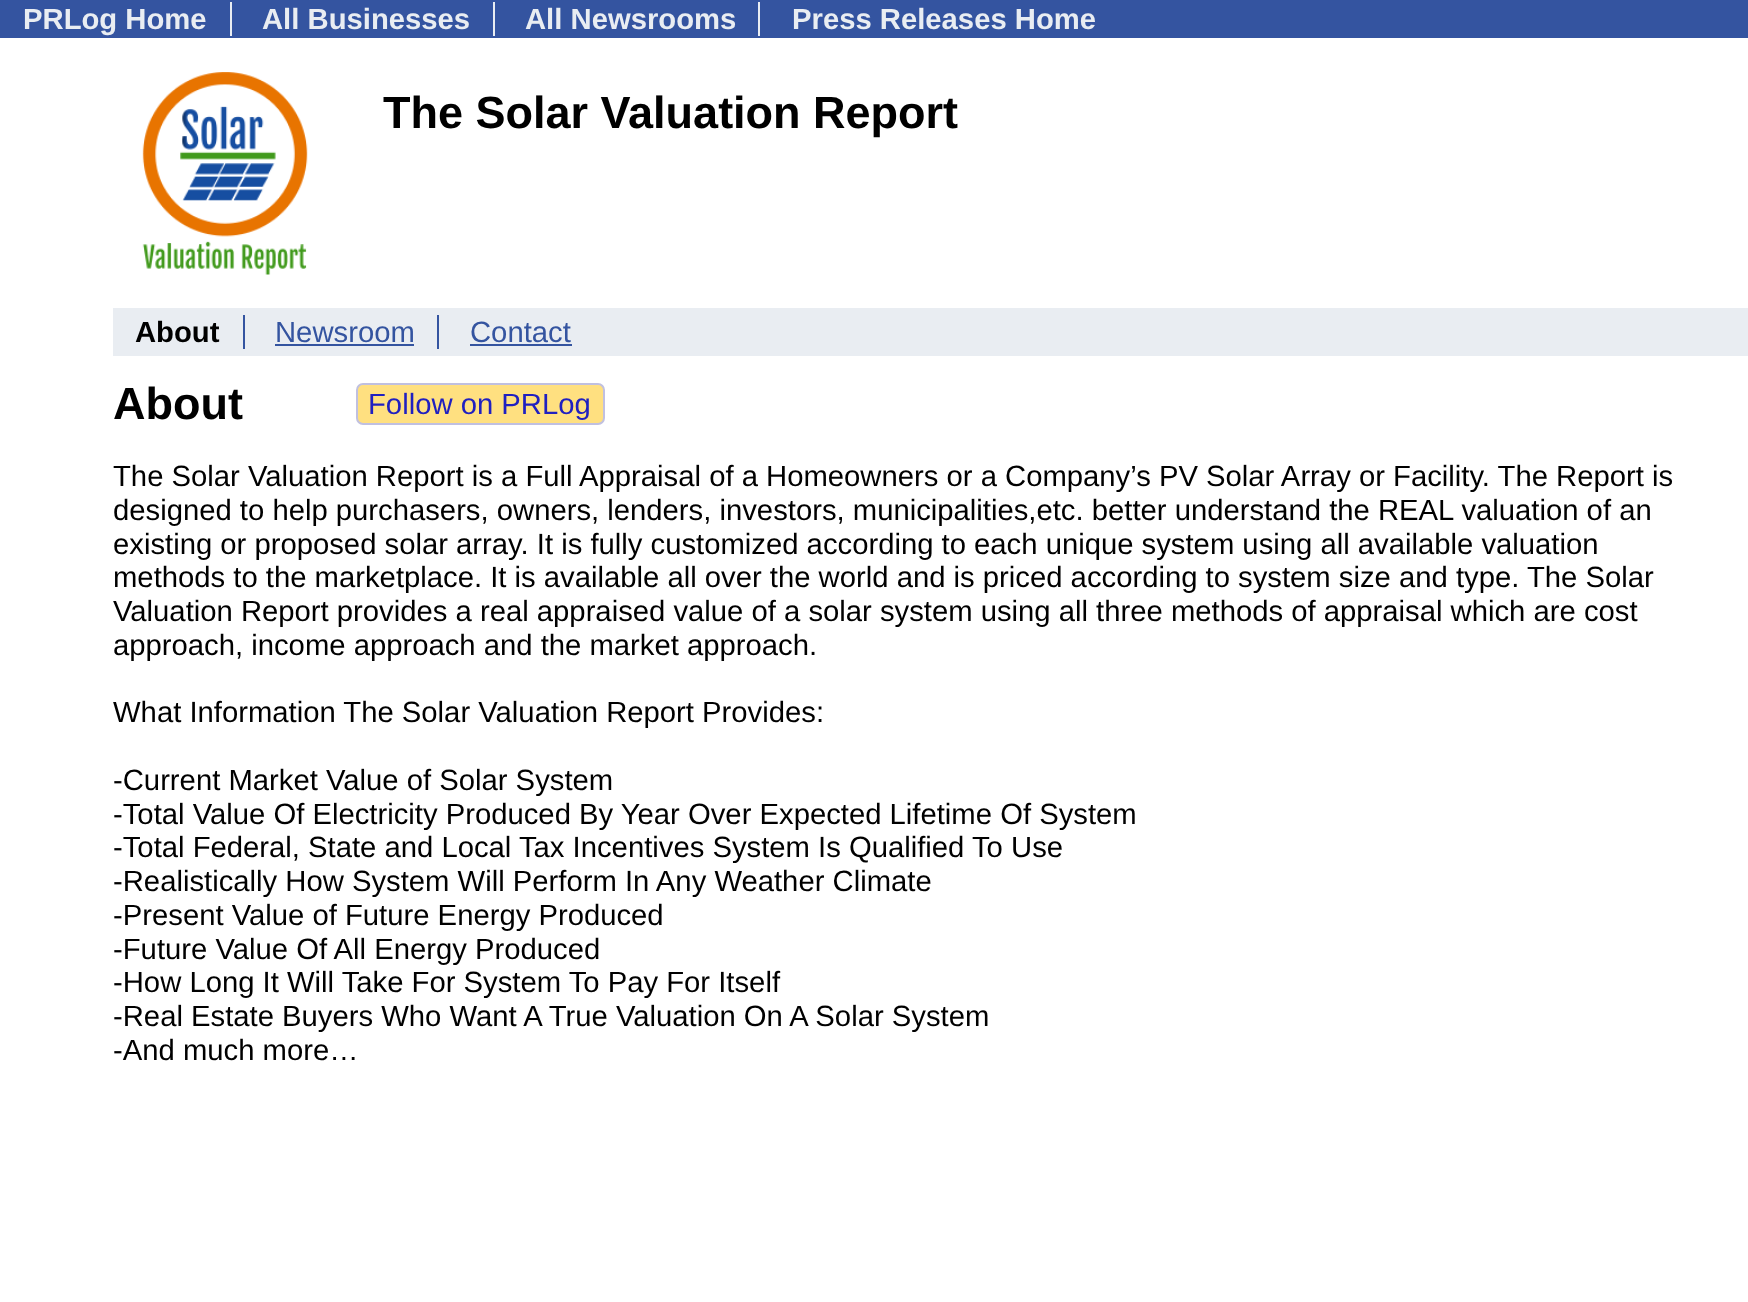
(async () => {
const canvas = document.querySelector("canvas")
canvas.width = 1748
canvas.height = 1302
const c = canvas.getContext("2d")
c.miterLimit = 4
c.fontKerning = "normal"
function T(s,x,y){c.fillText(s,x,y)}
function R(x,y,w,h){c.fillRect(x,y,w,h)}
async function I(src,x,y,w,h){const img=new Image();img.src=src;await img.decode();c.drawImage(img,x,y,w,h)}
c.fillStyle="#fff"
R(0,0,1748,1302)
c.fillStyle="#3454a0"
R(0,0,1748,38)
c.fillStyle="#e9edf2"
R(230,2,2,34)
c.font="bold 29.25px Liberation Sans"
T("PRLog Home",23,29)
R(493,2,2,34)
T("All Businesses",262,29)
R(758,2,2,34)
T("All Newsrooms",525,29)
T("Press Releases Home",792,29)
await I("1.png",142,72,166,203)
c.font="bold 45px Liberation Sans"
c.fillStyle="#000"
T("The Solar Valuation Report",383,128)
c.fillStyle="#e9edf2"
R(113,308,1635,48)
c.fillStyle="#3454a0"
R(243,315,2,34)
c.font="bold 29.25px Liberation Sans"
c.fillStyle="#000"
T("About",135,342)
c.fillStyle="#3454a0"
R(437,315,2,34)
c.font="29.25px Liberation Sans"
T("Newsroom",275,342)
R(275,344,139,2)
T("Contact",470,342)
R(470,344,102,2)
c.font="bold 45px Liberation Sans"
c.fillStyle="#000"
T("About",113,419)
c.fillStyle="#ffe080"
c.beginPath()
c.roundRect(357,384,247,40,6)
c.fill()
c.strokeStyle="#c0c0e0"
c.lineWidth=2
c.stroke()
c.font="29.25px Liberation Sans"
c.fillStyle="#2020c0"
T("Follow on PRLog",368,414)
c.fillStyle="#000"
T("The Solar Valuation Report is a Full Appraisal of a Homeowners or a Company’s PV Solar Array or Facility. The Report is",113,486)
T("designed to help purchasers, owners, lenders, investors, municipalities,etc. better understand the REAL valuation of an",113,520)
T("existing or proposed solar array. It is fully customized according to each unique system using all available valuation",113,554)
T("methods to the marketplace. It is available all over the world and is priced according to system size and type. The Solar",113,587)
T("Valuation Report provides a real appraised value of a solar system using all three methods of appraisal which are cost",113,621)
T("approach, income approach and the market approach.",113,655)
T("What Information The Solar Valuation Report Provides:",113,722)
T("-Current Market Value of Solar System",113,790)
T("-Total Value Of Electricity Produced By Year Over Expected Lifetime Of System",113,824)
T("-Total Federal, State and Local Tax Incentives System Is Qualified To Use",113,857)
T("-Realistically How System Will Perform In Any Weather Climate",113,891)
T("-Present Value of Future Energy Produced",113,925)
T("-Future Value Of All Energy Produced",113,959)
T("-How Long It Will Take For System To Pay For Itself",113,992)
T("-Real Estate Buyers Who Want A True Valuation On A Solar System",113,1026)
T("-And much more…",113,1060)
})()
